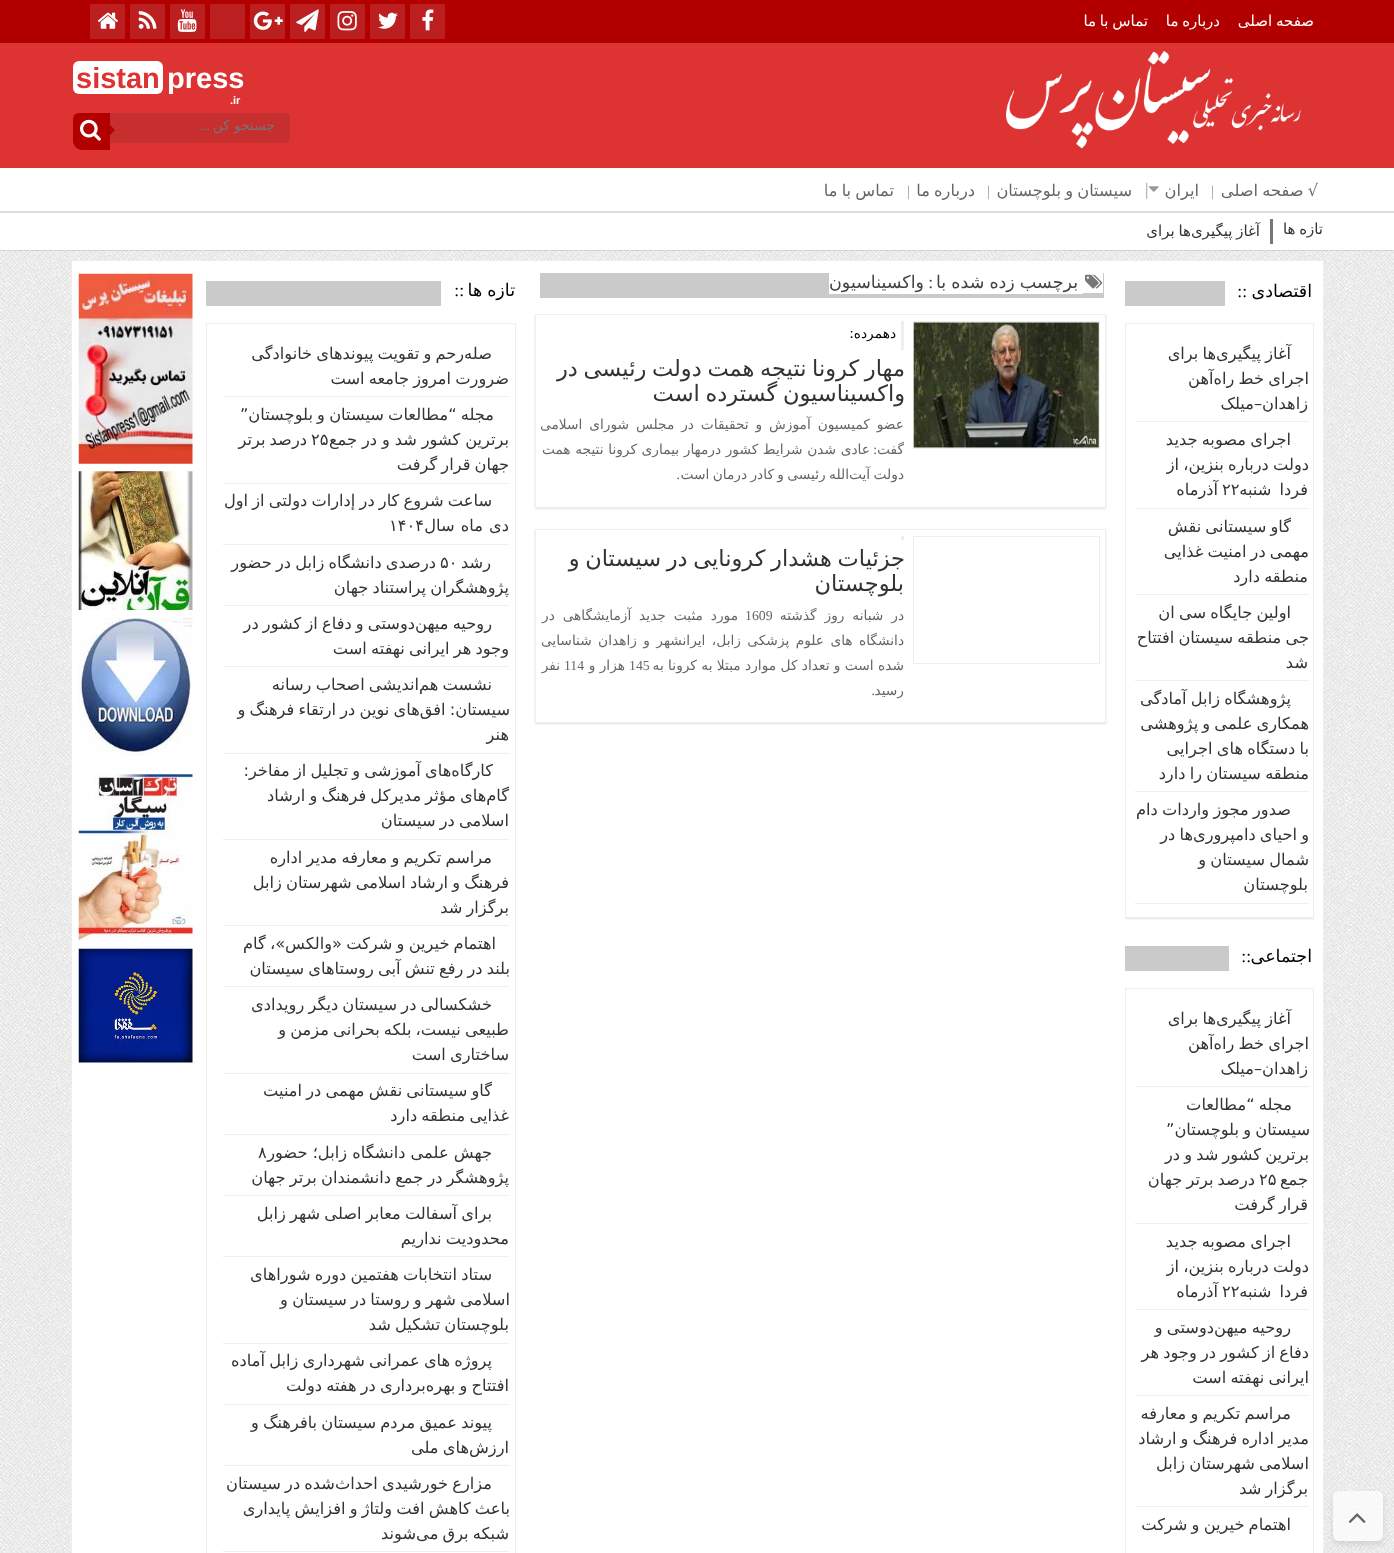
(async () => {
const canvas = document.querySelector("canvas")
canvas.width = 1394
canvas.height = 1553
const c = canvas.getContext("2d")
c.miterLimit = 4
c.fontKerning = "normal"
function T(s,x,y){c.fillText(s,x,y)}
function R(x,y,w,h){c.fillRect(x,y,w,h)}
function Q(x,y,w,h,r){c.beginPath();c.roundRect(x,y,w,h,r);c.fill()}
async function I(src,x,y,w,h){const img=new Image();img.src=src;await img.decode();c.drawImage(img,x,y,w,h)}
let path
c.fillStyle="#fff"
R(0,0,1394,1553)
await I("1.png",0,250,1394,1303)
c.fillStyle="#d33"
R(0,43,1394,125)
c.fillStyle="#ddd"
R(0,211,1394,2)
c.fillStyle="#b20000"
R(0,0,1394,43)
c.wordSpacing="-1px"
c.direction="rtl"
c.font="15px DejaVu Sans"
c.fillStyle="#fff"
T("صفحه اصلی",1314,26)
T("درباره ما",1220,26)
T("تماس با ما",1148,26)
c.fillStyle="#bb1f1f"
R(410,4,35,35)
await I("2.png",422,9,12,22)
R(370,4,35,35)
await I("3.png",378,12,20,17)
R(330,4,35,35)
await I("4.png",337,11,20,20)
R(290,4,35,35)
await I("5.png",296,9,23,23)
R(250,4,35,35)
await I("6.png",253,11,30,19)
R(210,4,35,35)
R(170,4,35,35)
await I("7.png",177,9,20,23)
R(130,4,35,35)
await I("8.png",138,11,19,18)
R(90,4,35,35)
await I("9.png",97,12,21,17)
await I("10.png",1006,51,295,98)
c.wordSpacing="0px"
c.direction="ltr"
c.font="bold 29px Liberation Sans"
c.fillStyle="#fff"
T("press",167,88)
c.font="bold 11px Liberation Sans"
T(".ir",230,104)
Q(73,61,90,33,6)
c.font="bold 29px Liberation Sans"
c.fillStyle="#d33"
T("sistan",76,88)
c.fillStyle="#c72e2e"
c.beginPath()
c.roundRect(110,113,180,30,[0,4,6,0])
c.fill()
c.direction="rtl"
c.font="13.75px DejaVu Sans"
c.fillStyle="#757575"
T("جستجو کن",275,130)
c.font="13.75px Liberation Serif"
T("...",210,130)
c.fillStyle="#b20000"
c.beginPath()
c.roundRect(73,113,37,37,[6,0,0,9])
c.fill()
await I("11.png",80,119,21,22)
path = new Path2D("M110 135v-10l5 5z")
c.fill(path)
c.wordSpacing="-1px"
c.font="16.25px DejaVu Sans"
c.fillStyle="#666"
T("√ صفحه اصلی",1318,196)
c.wordSpacing="0px"
c.direction="ltr"
c.font="15px Liberation Serif"
c.fillStyle="#999"
T("|",1211,196)
c.direction="rtl"
c.font="16.25px DejaVu Sans"
c.fillStyle="#666"
T("ایران",1199,196)
await I("12.png",1148,186,11,6)
c.direction="ltr"
c.font="17.5px Liberation Serif"
c.fillStyle="#999"
T("|",1145,195)
c.wordSpacing="-1px"
c.direction="rtl"
c.font="16.25px DejaVu Sans"
c.fillStyle="#666"
T("سیستان و بلوچستان",1132,196)
c.wordSpacing="0px"
c.direction="ltr"
c.font="15px Liberation Serif"
c.fillStyle="#999"
T("|",987,196)
c.wordSpacing="-1px"
c.direction="rtl"
c.font="16.25px DejaVu Sans"
c.fillStyle="#666"
T("درباره ما",975,196)
c.wordSpacing="0px"
c.direction="ltr"
c.font="15px Liberation Serif"
c.fillStyle="#999"
T("|",907,196)
c.wordSpacing="-1px"
c.direction="rtl"
c.font="16.25px DejaVu Sans"
c.fillStyle="#666"
T("تماس با ما",894,196)
c.fillStyle="#0000001a"
c.filter="blur(0.5px)"
c.beginPath()
c.rect(0,214,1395,37)
c.fill()
c.filter="none"
c.fillStyle="#fff"
R(0,213,1394,37)
c.font="15px DejaVu Sans"
c.fillStyle="#333"
T("تازه ها",1323,234)
c.fillStyle="#777"
R(1270,219,3,25)
c.fillStyle="#333"
T("آغاز پیگیری‌ها برای",1260,236)
c.fillStyle="#fff"
c.beginPath()
c.rect(71.5,260.5,1252,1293)
c.fill()
c.strokeStyle="#eee"
c.stroke()
c.save()
path = new Path2D("M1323 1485h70v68h-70zm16 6h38c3.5 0 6 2.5 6 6v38c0 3.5-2.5 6-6 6h-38c-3.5 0-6-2.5-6-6v-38c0-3.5 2.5-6 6-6z")
c.clip(path,"evenodd")
c.fillStyle="#9999994a"
c.filter="blur(3px)"
c.beginPath()
c.roundRect(1333,1495,50,50,6)
c.fill()
c.filter="none"
c.restore()
c.fillStyle="#ffffffb3"
Q(1333,1491,50,50,6)
await I("13.png",1348,1513,18,10)
c.fillStyle="#cacaca"
R(1125,281,100,25)
c.wordSpacing="0px"
c.font="17.5px DejaVu Sans"
c.fillStyle="#000"
T("اقتصادی",1312,297)
c.font="17.5px Liberation Serif"
T("::",1247,297)
c.save()
c.beginPath()
c.rect(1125,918,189,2)
c.clip()
c.fillStyle="#0000001c"
c.filter="blur(1px)"
c.beginPath()
c.rect(1125,324,189,595)
c.fill()
c.filter="none"
c.restore()
c.strokeRect(1125.5,323.5,188,594)
c.fillStyle="#eee"
R(1135,421,174,1)
c.wordSpacing="-1px"
c.font="16.25px DejaVu Sans"
c.fillStyle="#333"
T("آغاز پیگیری‌ها برای",1291,359)
T("اجرای خط راه‌آهن",1309,384)
c.wordSpacing="0px"
T("زاهدان–میلک",1308,409)
c.fillStyle="#eee"
R(1135,508,174,1)
c.wordSpacing="-1px"
c.fillStyle="#333"
T("اجرای مصوبه جدید",1291,445)
c.save()
c.beginPath()
c.rect(1130,336,179,568)
c.clip()
T("دولت درباره بنزین، از",1309,470)
c.restore()
c.wordSpacing="3px"
T("فردا شنبه",1308,495)
c.wordSpacing="0px"
c.direction="ltr"
T("۲۲",1222,495)
c.direction="rtl"
T("آذرماه",1218,495)
c.fillStyle="#eee"
R(1135,594,174,1)
c.wordSpacing="-1px"
c.fillStyle="#333"
T("گاو سیستانی نقش",1291,532)
c.save()
c.beginPath()
c.rect(1130,336,179,568)
c.clip()
T("مهمی در امنیت غذایی",1309,557)
c.restore()
T("منطقه دارد",1308,582)
c.fillStyle="#eee"
R(1135,680,174,1)
c.fillStyle="#333"
T("اولین جایگاه سی ان",1291,618)
c.save()
c.beginPath()
c.rect(1130,336,179,568)
c.clip()
T("جی منطقه سیستان افتتاح",1309,643)
c.restore()
c.wordSpacing="0px"
T("شد",1308,668)
c.fillStyle="#eee"
R(1135,791,174,1)
c.wordSpacing="-1px"
c.fillStyle="#333"
T("پژوهشگاه زابل آمادگی",1291,704)
c.save()
c.beginPath()
c.rect(1130,336,179,568)
c.clip()
T("همکاری علمی و پژوهشی",1309,729)
T("با دستگاه های اجرایی",1309,754)
T("منطقه سیستان را دارد",1309,779)
c.restore()
c.fillStyle="#eee"
R(1135,903,174,1)
c.fillStyle="#333"
T("صدور مجوز واردات دام",1291,815)
c.save()
c.beginPath()
c.rect(1130,336,179,568)
c.clip()
T("و احیای دامپروری‌ها در",1309,840)
T("شمال سیستان و",1309,865)
c.restore()
c.wordSpacing="0px"
T("بلوچستان",1308,890)
c.fillStyle="#cacaca"
R(1125,946,104,25)
c.font="17.5px DejaVu Sans"
c.fillStyle="#000"
T("اجتماعی",1312,962)
c.font="17.5px Liberation Serif"
T("::",1251,962)
c.strokeRect(1125.5,988.5,188,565)
c.fillStyle="#eee"
R(1135,1086,174,1)
c.wordSpacing="-1px"
c.font="16.25px DejaVu Sans"
c.fillStyle="#333"
T("آغاز پیگیری‌ها برای",1291,1024)
T("اجرای خط راه‌آهن",1309,1049)
c.wordSpacing="0px"
T("زاهدان–میلک",1308,1074)
c.fillStyle="#eee"
R(1135,1223,174,1)
c.wordSpacing="-1px"
c.fillStyle="#333"
T("مجله “مطالعات",1292,1110)
c.save()
c.beginPath()
c.rect(1130,1001,179,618)
c.clip()
T("سیستان و بلوچستان”",1310,1135)
T("برترین کشور شد و در",1309,1160)
c.restore()
c.wordSpacing="0px"
T("جمع",1308,1185)
c.direction="ltr"
T("۲۵",1259,1185)
c.wordSpacing="-1px"
c.direction="rtl"
T("درصد برتر جهان",1255,1185)
T("قرار گرفت",1308,1210)
c.fillStyle="#eee"
R(1135,1309,174,1)
c.fillStyle="#333"
T("اجرای مصوبه جدید",1291,1247)
c.save()
c.beginPath()
c.rect(1130,1001,179,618)
c.clip()
T("دولت درباره بنزین، از",1309,1272)
c.restore()
c.wordSpacing="3px"
T("فردا شنبه",1308,1297)
c.wordSpacing="0px"
c.direction="ltr"
T("۲۲",1222,1297)
c.direction="rtl"
T("آذرماه",1218,1297)
c.fillStyle="#eee"
R(1135,1395,174,1)
c.wordSpacing="-1px"
c.fillStyle="#333"
T("روحیه میهن‌دوستی و",1291,1333)
c.save()
c.beginPath()
c.rect(1130,1001,179,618)
c.clip()
T("دفاع از کشور در وجود هر",1309,1358)
c.restore()
T("ایرانی نهفته است",1309,1383)
c.fillStyle="#eee"
R(1135,1506,174,1)
c.fillStyle="#333"
T("مراسم تکریم و معارفه",1291,1419)
c.save()
c.beginPath()
c.rect(1130,1001,179,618)
c.clip()
T("مدیر اداره فرهنگ و ارشاد",1309,1444)
c.restore()
T("اسلامی شهرستان زابل",1309,1469)
T("برگزار شد",1308,1494)
T("اهتمام خیرین و شرکت",1291,1530)
c.fillStyle="#cacaca"
R(540,273,564,25)
c.fillStyle="#fff"
R(1083,273,20,20)
R(829,273,254,21)
await I("14.png",1085,274,18,15)
c.wordSpacing="-0.5px"
c.font="17.5px DejaVu Sans"
c.fillStyle="#444"
T("برچسب زده شده با",1078,288)
c.wordSpacing="0px"
c.font="17.5px Liberation Serif"
T(":",933,288)
c.font="17.5px DejaVu Sans"
T("واکسیناسیون",924,288)
c.fillStyle="#0000001c"
c.filter="blur(1px)"
c.beginPath()
c.rect(535,315,571,194)
c.fill()
c.filter="none"
c.fillStyle="#fff"
c.beginPath()
c.rect(535.5,314.5,570,193)
c.fill()
c.stroke()
c.strokeRect(913.5,321.5,186,127)
await I("15.png",913,322,186,126)
c.fillStyle="#eee"
R(901,321,3,29)
c.font="13.75px DejaVu Sans"
c.fillStyle="#000"
T("دهمرده:",896,338)
c.wordSpacing="-1.5px"
c.font="22.5px DejaVu Sans"
c.fillStyle="#333"
T("مهار کرونا نتیجه همت دولت رئیسی در",905,376)
T("واکسیناسیون گسترده است",905,401)
c.wordSpacing="2.5px"
c.font="13.75px DejaVu Sans"
c.fillStyle="#666"
T("عضو کمیسیون آموزش و تحقیقات در مجلس شورای اسلامی",904,429)
c.wordSpacing="0px"
T("گفت",904,454)
c.font="13.75px Liberation Serif"
T(":",877,454)
c.wordSpacing="0.25px"
c.font="13.75px DejaVu Sans"
T("عادی شدن شرایط کشور درمهار بیماری کرونا نتیجه همت",870,454)
c.wordSpacing="-1px"
T("الله رئیسی و کادر درمان است",849,479)
T("دولت آیت",904,479)
c.wordSpacing="0px"
c.font="13.75px Liberation Serif"
T(".",680,479)
c.fillStyle="#0000001c"
c.filter="blur(1px)"
c.beginPath()
c.rect(535,530,571,194)
c.fill()
c.filter="none"
c.fillStyle="#fff"
c.beginPath()
c.rect(535.5,529.5,570,193)
c.fill()
c.stroke()
c.strokeRect(913.5,536.5,186,127)
c.fillStyle="#eee"
R(901,536,3,4)
c.wordSpacing="-1.5px"
c.font="22.5px DejaVu Sans"
c.fillStyle="#333"
T("جزئیات هشدار کرونایی در سیستان و",905,566)
c.wordSpacing="0px"
T("بلوچستان",904,591)
c.wordSpacing="3.5px"
c.font="13.75px DejaVu Sans"
c.fillStyle="#666"
T("در شبانه روز گذشته",904,620)
c.wordSpacing="0px"
c.direction="ltr"
c.font="13.75px Liberation Serif"
T("1609",745,620)
c.wordSpacing="3.5px"
c.direction="rtl"
c.font="13.75px DejaVu Sans"
T("مورد مثبت جدید آزمایشگاهی در",738,620)
c.wordSpacing="2px"
T("دانشگاه های علوم پزشکی زابل، ایرانشهر و زاهدان شناسایی",904,645)
c.wordSpacing="0px"
T("شده است و تعداد کل موارد مبتلا به کرونا به",904,670)
c.direction="ltr"
c.font="13.75px Liberation Serif"
T("145",629,670)
c.direction="rtl"
c.font="13.75px DejaVu Sans"
T("هزار و",625,670)
c.direction="ltr"
c.font="13.75px Liberation Serif"
T("114",564,670)
c.direction="rtl"
c.font="13.75px DejaVu Sans"
T("نفر",560,670)
T("رسید",904,695)
c.font="13.75px Liberation Serif"
T(".",875,695)
c.fillStyle="#cacaca"
R(206,281,235,25)
c.wordSpacing="-0.5px"
c.font="17.5px DejaVu Sans"
c.fillStyle="#000"
T("تازه ها",515,296)
c.wordSpacing="0px"
c.font="17.5px Liberation Serif"
T("::",464,296)
c.strokeRect(206.5,323.5,309,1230)
c.fillStyle="#eee"
R(223,396,286,1)
c.wordSpacing="-1px"
c.font="16.25px DejaVu Sans"
c.fillStyle="#333"
T("صله‌رحم و تقویت پیوندهای خانوادگی",492,359)
c.save()
c.beginPath()
c.rect(213,336,296,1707)
c.clip()
T("ضرورت امروز جامعه است",509,384)
c.restore()
c.fillStyle="#eee"
R(223,483,286,1)
c.fillStyle="#333"
T("مجله “مطالعات سیستان و بلوچستان”",494,420)
c.wordSpacing="-0.25px"
T("برترین کشور شد و در جمع",509,445)
c.wordSpacing="0px"
c.direction="ltr"
T("۲۵",311,445)
c.wordSpacing="-1px"
c.direction="rtl"
T("درصد برتر",307,445)
c.save()
c.beginPath()
c.rect(213,336,296,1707)
c.clip()
T("جهان قرار گرفت",509,470)
c.restore()
c.fillStyle="#eee"
R(223,544,286,1)
c.fillStyle="#333"
T("ساعت شروع کار در إدارات دولتی از اول",492,506)
c.wordSpacing="1px"
T("دی ماه سال",509,531)
c.wordSpacing="0px"
c.direction="ltr"
T("۱۴۰۴",389,531)
c.fillStyle="#eee"
R(223,605,286,1)
c.direction="rtl"
c.fillStyle="#333"
T("رشد",491,568)
c.direction="ltr"
T("۵۰",440,568)
c.wordSpacing="-1px"
c.direction="rtl"
T("درصدی دانشگاه زابل در حضور",436,568)
c.save()
c.beginPath()
c.rect(213,336,296,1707)
c.clip()
T("پژوهشگران پراستناد جهان",509,593)
c.restore()
c.fillStyle="#eee"
R(223,666,286,1)
c.fillStyle="#333"
T("روحیه میهن‌دوستی و دفاع از کشور در",492,629)
c.save()
c.beginPath()
c.rect(213,336,296,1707)
c.clip()
T("وجود هر ایرانی نهفته است",509,654)
c.restore()
c.fillStyle="#eee"
R(223,753,286,1)
c.fillStyle="#333"
T("نشست هم‌اندیشی اصحاب رسانه",492,690)
c.save()
c.beginPath()
c.rect(213,336,296,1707)
c.clip()
T("سیستان: افق‌های نوین در ارتقاء فرهنگ و",510,715)
c.restore()
c.wordSpacing="0px"
T("هنر",509,740)
c.fillStyle="#eee"
R(223,839,286,1)
c.wordSpacing="-1px"
c.fillStyle="#333"
T("کارگاه‌های آموزشی و تجلیل از مفاخر:",493,776)
c.save()
c.beginPath()
c.rect(213,336,296,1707)
c.clip()
T("گام‌های مؤثر مدیرکل فرهنگ و ارشاد",509,801)
T("اسلامی در سیستان",509,826)
c.restore()
c.fillStyle="#eee"
R(223,925,286,1)
c.fillStyle="#333"
T("مراسم تکریم و معارفه مدیر اداره",492,863)
c.save()
c.beginPath()
c.rect(213,336,296,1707)
c.clip()
T("فرهنگ و ارشاد اسلامی شهرستان زابل",509,888)
c.restore()
T("برگزار شد",509,913)
c.fillStyle="#eee"
R(223,986,286,1)
c.fillStyle="#333"
T("اهتمام خیرین و شرکت «والکس»، گام",496,949)
c.save()
c.beginPath()
c.rect(213,336,296,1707)
c.clip()
T("بلند در رفع تنش آبی روستاهای سیستان",510,974)
c.restore()
c.fillStyle="#eee"
R(223,1073,286,1)
c.fillStyle="#333"
T("خشکسالی در سیستان دیگر رویدادی",492,1010)
c.save()
c.beginPath()
c.rect(213,336,296,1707)
c.clip()
T("طبیعی نیست، بلکه بحرانی مزمن و",509,1035)
c.restore()
T("ساختاری است",509,1060)
c.fillStyle="#eee"
R(223,1134,286,1)
c.fillStyle="#333"
T("گاو سیستانی نقش مهمی در امنیت",492,1096)
c.save()
c.beginPath()
c.rect(213,336,296,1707)
c.clip()
T("غذایی منطقه دارد",509,1121)
c.restore()
c.fillStyle="#eee"
R(223,1195,286,1)
c.wordSpacing="0px"
c.direction="ltr"
c.fillStyle="#333"
T("۸",258,1158)
c.direction="rtl"
T("جهش علمی دانشگاه زابل؛ حضور",492,1158)
c.save()
c.beginPath()
c.rect(213,336,296,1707)
c.clip()
c.wordSpacing="-1px"
T("پژوهشگر در جمع دانشمندان برتر جهان",509,1183)
c.restore()
c.fillStyle="#eee"
R(223,1256,286,1)
c.wordSpacing="-1px"
c.fillStyle="#333"
T("برای آسفالت معابر اصلی شهر زابل",492,1219)
T("محدودیت نداریم",509,1244)
c.fillStyle="#eee"
R(223,1343,286,1)
c.fillStyle="#333"
T("ستاد انتخابات هفتمین دوره شوراهای",492,1280)
c.save()
c.beginPath()
c.rect(213,336,296,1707)
c.clip()
T("اسلامی شهر و روستا در سیستان و",510,1305)
T("بلوچستان تشکیل شد",509,1330)
c.restore()
c.fillStyle="#eee"
R(223,1404,286,1)
c.fillStyle="#333"
T("پروژه های عمرانی شهرداری زابل آماده",492,1366)
c.save()
c.beginPath()
c.rect(213,336,296,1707)
c.clip()
T("افتتاح و بهره‌برداری در هفته دولت",509,1391)
c.restore()
c.fillStyle="#eee"
R(223,1465,286,1)
c.fillStyle="#333"
T("پیوند عمیق مردم سیستان بافرهنگ و",492,1428)
T("ارزش‌های ملی",509,1453)
c.fillStyle="#eee"
R(223,1551,286,1)
c.fillStyle="#333"
T("مزارع خورشیدی احداث‌شده در سیستان",492,1489)
c.save()
c.beginPath()
c.rect(213,336,296,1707)
c.clip()
T("باعث کاهش افت ولتاژ و افزایش پایداری",510,1514)
T("شبکه برق می‌شوند",509,1539)
c.restore()
await I("16.png",78,273,115,191)
await I("17.png",78,471,115,139)
await I("18.png",79,617,114,139)
await I("19.png",78,773,115,168)
await I("20.png",78,948,115,115)
})()
